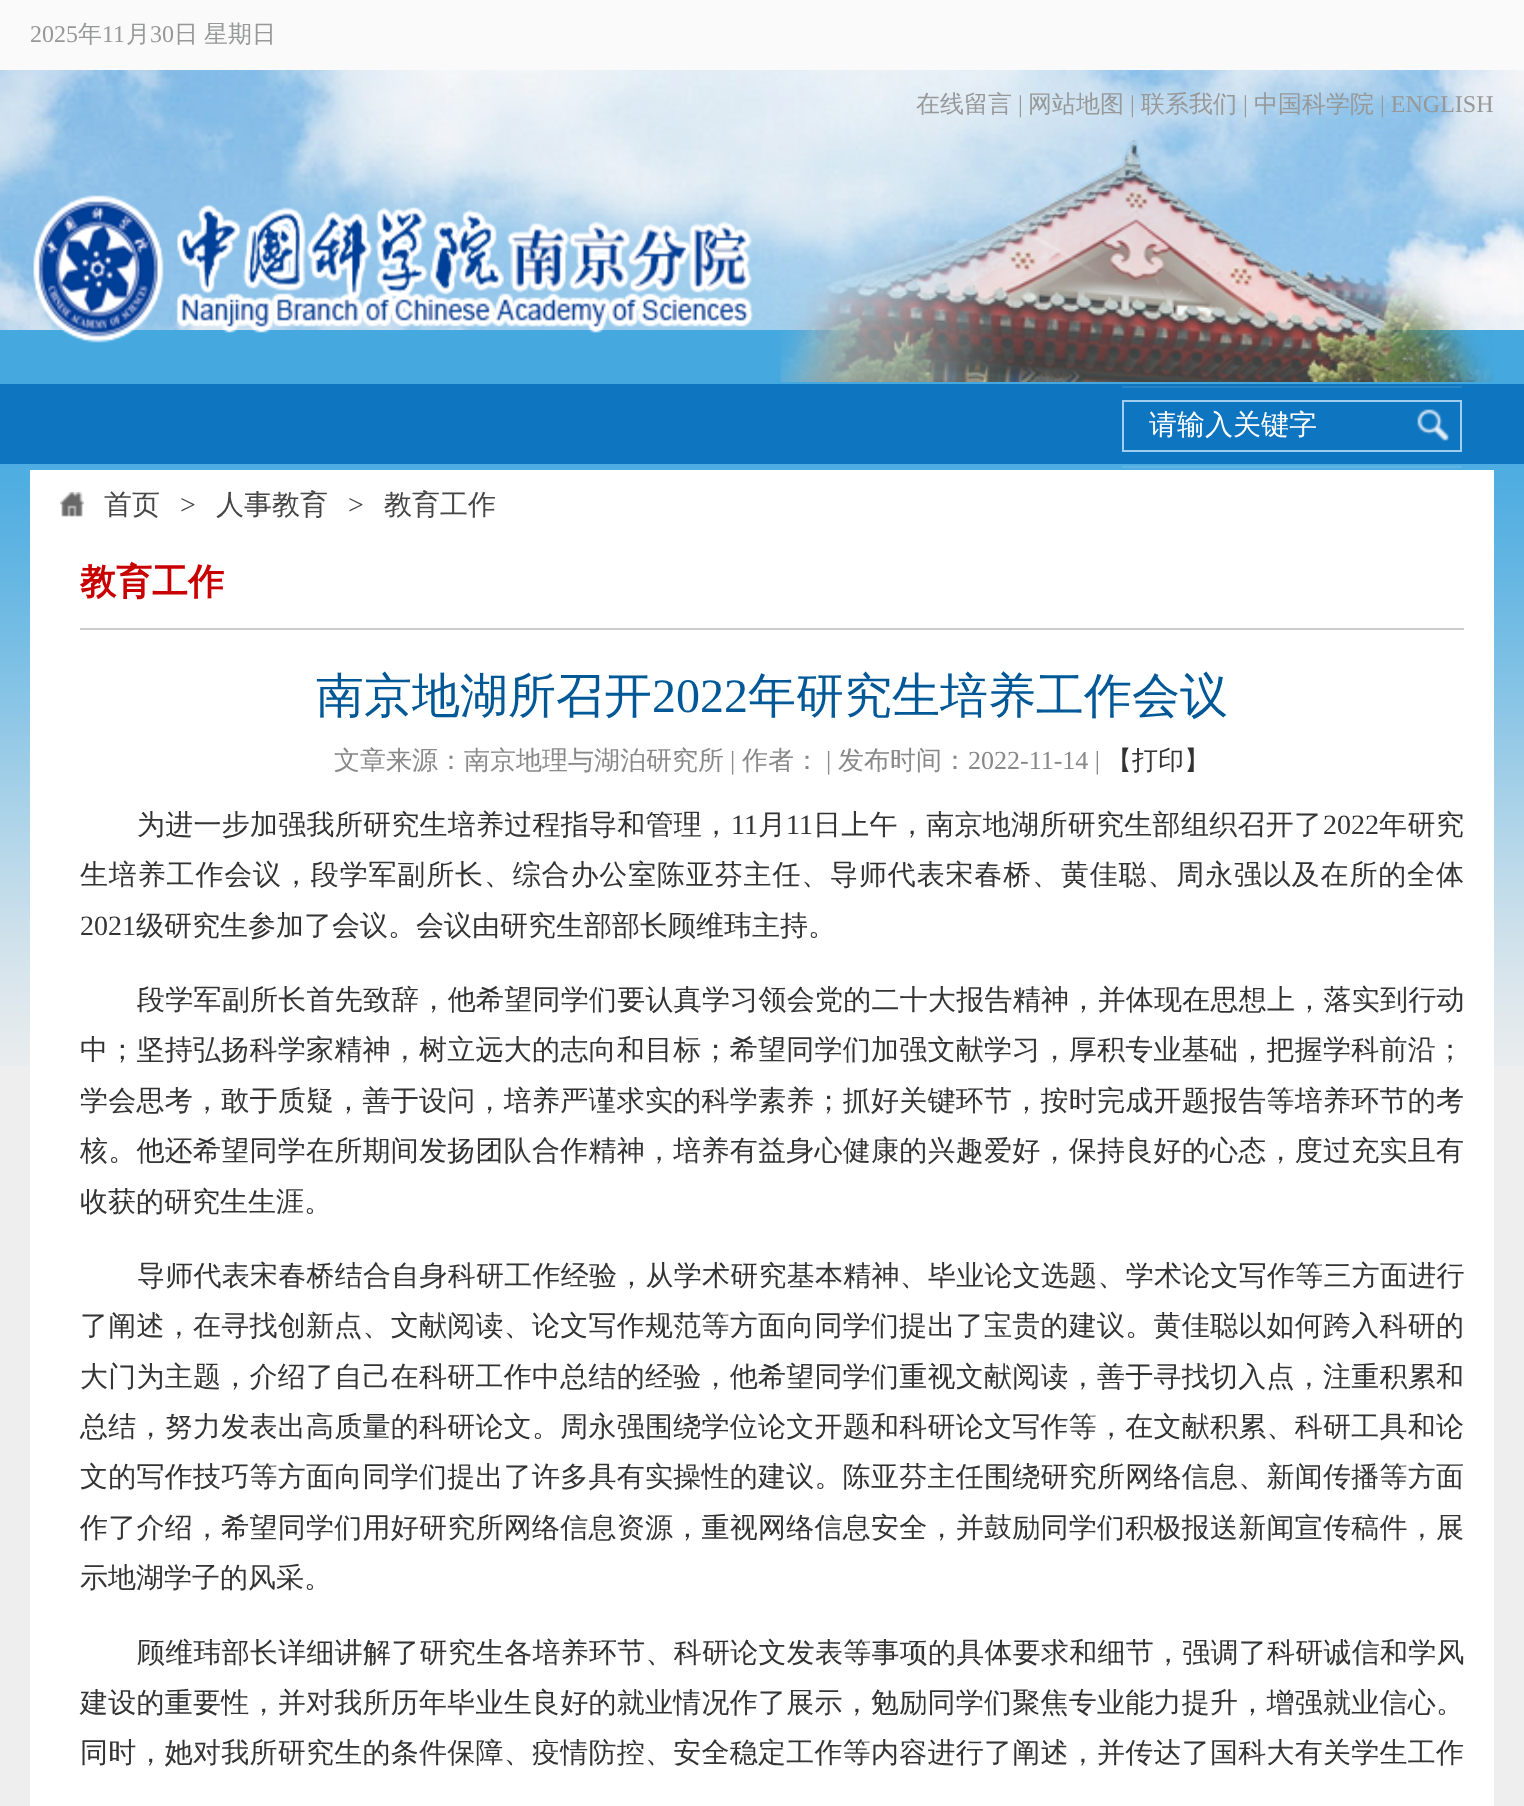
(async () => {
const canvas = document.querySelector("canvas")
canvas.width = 1524
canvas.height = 1806
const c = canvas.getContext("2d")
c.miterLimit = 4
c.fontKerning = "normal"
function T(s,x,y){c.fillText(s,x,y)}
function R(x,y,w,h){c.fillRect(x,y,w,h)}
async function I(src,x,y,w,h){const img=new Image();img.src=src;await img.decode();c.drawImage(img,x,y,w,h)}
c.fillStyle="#eee"
R(0,0,1524,1806)
await I("1.png",0,330,1524,736)
c.fillStyle="#fafafa"
R(0,0,1524,70)
c.font="24px Liberation Serif"
c.fillStyle="#979898"
T("2025",30,42)
c.font="500 24px WenQuanYi Zen Hei"
T("年",78,42)
c.font="24px Liberation Serif"
T("11",102,42)
c.font="500 24px WenQuanYi Zen Hei"
T("月",126,42)
c.font="24px Liberation Serif"
T("30",150,42)
c.font="500 24px WenQuanYi Zen Hei"
T("日",174,42)
T("星期日",204,42)
await I("2.png",0,70,1524,260)
T("在线留言",916,112)
c.font="24px Liberation Serif"
T("|",1018,112)
c.font="500 24px WenQuanYi Zen Hei"
T("网站地图",1028,112)
c.font="24px Liberation Serif"
T("|",1130,112)
c.font="500 24px WenQuanYi Zen Hei"
T("联系我们",1141,112)
c.font="24px Liberation Serif"
T("|",1243,112)
c.font="500 24px WenQuanYi Zen Hei"
T("中国科学院",1254,112)
c.font="24px Liberation Serif"
T("| ENGLISH",1380,112)
await I("3.png",33,195,721,148)
await I("4.png",780,140,714,242)
c.fillStyle="#0e75c0"
R(0,384,1524,80)
c.fillStyle="#5fb4e4"
R(1122,466,340,2)
c.fillStyle="#2683c6"
R(1122,386,340,2)
c.strokeStyle="#a0ceee"
c.lineWidth=2
c.strokeRect(1123,401,338,50)
c.font="500 28px WenQuanYi Zen Hei"
c.fillStyle="#fff"
T("请输入关键字",1149,434)
await I("5.png",1417,409,32,32)
R(30,470,1464,1336)
await I("6.png",60,492,24,25)
c.fillStyle="#464646"
T("首页",104,514)
c.font="28px Liberation Serif"
T(">",180,514)
c.font="500 28px WenQuanYi Zen Hei"
T("人事教育",216,514)
c.font="28px Liberation Serif"
T(">",348,514)
c.font="500 28px WenQuanYi Zen Hei"
T("教育工作",384,514)
c.fillStyle="#ccc"
R(80,628,1384,2)
c.font="bold 36px WenQuanYi Zen Hei"
c.fillStyle="#c80000"
T("教育工作",80,594)
c.font="500 48px WenQuanYi Zen Hei"
c.fillStyle="#005896"
T("南京地湖所召开",316,712)
c.font="48px Liberation Serif"
T("2022",652,712)
c.font="500 48px WenQuanYi Zen Hei"
T("年研究生培养工作会议",748,712)
c.font="500 26px WenQuanYi Zen Hei"
c.fillStyle="#888"
T("文章来源：南京地理与湖泊研究所",334,769)
c.font="26px Liberation Serif"
T("|",730,769)
c.font="500 26px WenQuanYi Zen Hei"
T("作者：",742,769)
c.font="26px Liberation Serif"
T("|",826,769)
c.font="500 26px WenQuanYi Zen Hei"
T("发布时间：",838,769)
c.font="26px Liberation Serif"
T("2022-11-14 |",968,769)
c.font="500 26px WenQuanYi Zen Hei"
c.fillStyle="#333"
T("【打印】",1106,769)
c.letterSpacing="0.25px"
c.font="500 28px WenQuanYi Zen Hei"
T("为进一步加强我所研究生培养过程指导和管理，",137,834)
c.letterSpacing="0px"
c.font="28px Liberation Serif"
T("11",731,834)
c.font="500 28px WenQuanYi Zen Hei"
T("月",758,834)
c.font="28px Liberation Serif"
T("11",786,834)
c.letterSpacing="0.3px"
c.font="500 28px WenQuanYi Zen Hei"
T("日上午，南京地湖所研究生部组织召开了",813,834)
c.letterSpacing="0px"
c.font="28px Liberation Serif"
T("2022",1323,834)
c.letterSpacing="0.5px"
c.font="500 28px WenQuanYi Zen Hei"
T("年研究",1379,834)
c.letterSpacing="0.85px"
T("生培养工作会议，段学军副所长、综合办公室陈亚芬主任、导师代表宋春桥、黄佳聪、周永强以及在所的全体",80,884)
c.letterSpacing="0px"
c.font="28px Liberation Serif"
T("2021",80,935)
c.font="500 28px WenQuanYi Zen Hei"
T("级研究生参加了会议。会议由研究生部部长顾维玮主持。",136,935)
c.letterSpacing="0.25px"
T("段学军副所长首先致辞，他希望同学们要认真学习领会党的二十大报告精神，并体现在思想上，落实到行动",137,1009)
T("中；坚持弘扬科学家精神，树立远大的志向和目标；希望同学们加强文献学习，厚积专业基础，把握学科前沿；",80,1059)
T("学会思考，敢于质疑，善于设问，培养严谨求实的科学素养；抓好关键环节，按时完成开题报告等培养环节的考",80,1110)
T("核。他还希望同学在所期间发扬团队合作精神，培养有益身心健康的兴趣爱好，保持良好的心态，度过充实且有",80,1160)
c.letterSpacing="0px"
T("收获的研究生生涯。",80,1211)
c.letterSpacing="0.25px"
T("导师代表宋春桥结合自身科研工作经验，从学术研究基本精神、毕业论文选题、学术论文写作等三方面进行",137,1285)
T("了阐述，在寻找创新点、文献阅读、论文写作规范等方面向同学们提出了宝贵的建议。黄佳聪以如何跨入科研的",80,1335)
T("大门为主题，介绍了自己在科研工作中总结的经验，他希望同学们重视文献阅读，善于寻找切入点，注重积累和",80,1386)
T("总结，努力发表出高质量的科研论文。周永强围绕学位论文开题和科研论文写作等，在文献积累、科研工具和论",80,1436)
T("文的写作技巧等方面向同学们提出了许多具有实操性的建议。陈亚芬主任围绕研究所网络信息、新闻传播等方面",80,1486)
T("作了介绍，希望同学们用好研究所网络信息资源，重视网络信息安全，并鼓励同学们积极报送新闻宣传稿件，展",80,1537)
c.letterSpacing="0px"
T("示地湖学子的风采。",80,1587)
c.letterSpacing="0.25px"
T("顾维玮部长详细讲解了研究生各培养环节、科研论文发表等事项的具体要求和细节，强调了科研诚信和学风",137,1662)
T("建设的重要性，并对我所历年毕业生良好的就业情况作了展示，勉励同学们聚焦专业能力提升，增强就业信心。",80,1712)
T("同时，她对我所研究生的条件保障、疫情防控、安全稳定工作等内容进行了阐述，并传达了国科大有关学生工作",80,1762)
})()
